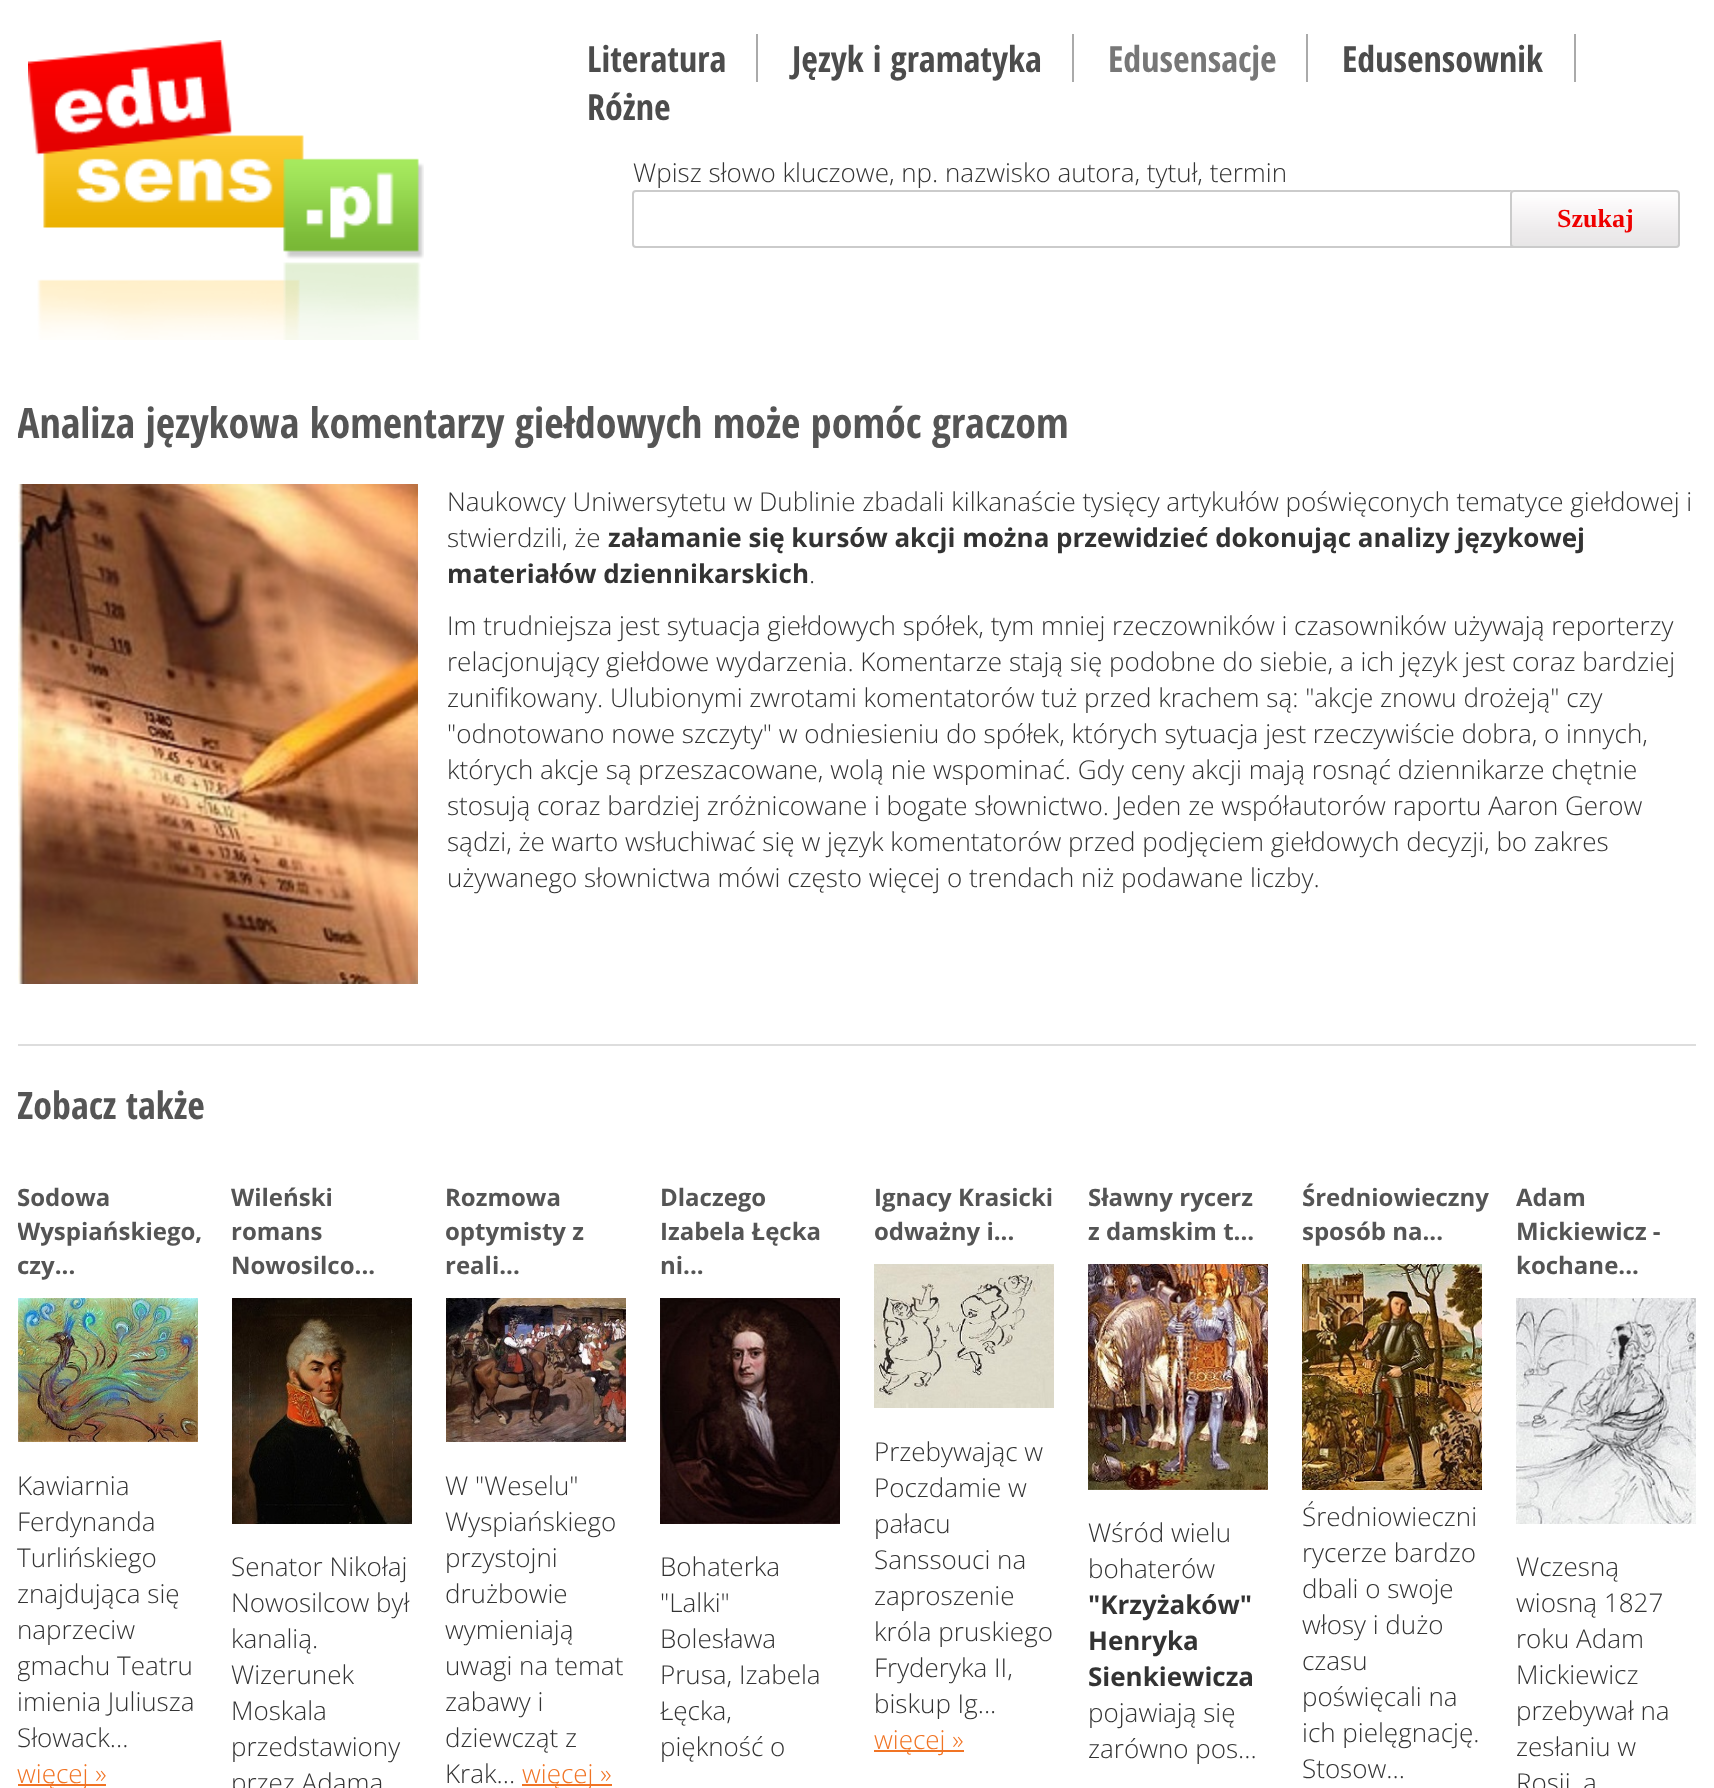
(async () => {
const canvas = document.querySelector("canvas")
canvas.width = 1714
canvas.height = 1788
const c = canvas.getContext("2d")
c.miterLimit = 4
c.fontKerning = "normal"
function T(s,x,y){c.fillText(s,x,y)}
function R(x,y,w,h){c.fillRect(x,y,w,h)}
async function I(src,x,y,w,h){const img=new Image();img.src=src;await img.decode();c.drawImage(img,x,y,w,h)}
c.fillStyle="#fff"
R(0,0,1714,1788)
await I("1.png",28,40,396,300)
c.fillStyle="#aaa"
R(756,34,2,48)
c.font="bold 36px Open Sans Condensed"
c.fillStyle="#4c4c4c"
T("Literatura",587,72)
c.fillStyle="#aaa"
R(1072,34,2,48)
c.fillStyle="#4c4c4c"
T("Język i gramatyka",792,72)
c.fillStyle="#aaa"
R(1306,34,2,48)
c.fillStyle="#777"
T("Edusensacje",1108,72)
c.fillStyle="#aaa"
R(1574,34,2,48)
c.fillStyle="#4c4c4c"
T("Edusensownik",1342,72)
T("Różne",587,120)
c.font="300 26px Open Sans"
c.fillStyle="#333"
T("Wpisz słowo kluczowe, np. nazwisko autora, tytuł, termin",633,182)
c.beginPath()
c.roundRect(633,191,882,56,3)
c.strokeStyle="#cbcbcb"
c.lineWidth=2
c.stroke()
await I("2.png",1510,190,170,56)
c.beginPath()
c.roundRect(1511,191,168,56,3)
c.stroke()
c.font="bold 26px Liberation Serif"
c.fillStyle="#ef0000"
T("Szukaj",1557,227)
c.save()
c.beginPath()
c.rect(18,360,1678,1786)
c.clip()
c.font="bold 42px Open Sans Condensed"
c.fillStyle="#555"
T("Analiza językowa komentarzy giełdowych może pomóc graczom",17,438)
c.restore()
await I("3.png",18,484,400,500)
c.font="300 26px Open Sans"
c.fillStyle="#333"
T("Naukowcy Uniwersytetu w Dublinie zbadali kilkanaście tysięcy artykułów poświęconych tematyce giełdowej i",447,511)
T("stwierdzili, że",447,547)
c.font="bold 26px Open Sans"
T("załamanie się kursów akcji można przewidzieć dokonując analizy językowej",608,547)
T("materiałów dziennikarskich",447,583)
c.font="300 26px Open Sans"
T(".",809,583)
T("Im trudniejsza jest sytuacja giełdowych spółek, tym mniej rzeczowników i czasowników używają reporterzy",447,635)
T("relacjonujący giełdowe wydarzenia. Komentarze stają się podobne do siebie, a ich język jest coraz bardziej",447,671)
T("zunifikowany. Ulubionymi zwrotami komentatorów tuż przed krachem są: \"akcje znowu drożeją\" czy",447,707)
T("\"odnotowano nowe szczyty\" w odniesieniu do spółek, których sytuacja jest rzeczywiście dobra, o innych,",447,743)
T("których akcje są przeszacowane, wolą nie wspominać. Gdy ceny akcji mają rosnąć dziennikarze chętnie",447,779)
T("stosują coraz bardziej zróżnicowane i bogate słownictwo. Jeden ze współautorów raportu Aaron Gerow",447,815)
T("sądzi, że warto wsłuchiwać się w język komentatorów przed podjęciem giełdowych decyzji, bo zakres",447,851)
T("używanego słownictwa mówi często więcej o trendach niż podawane liczby.",447,887)
c.fillStyle="#ddd"
R(18,1044,1678,2)
c.save()
c.beginPath()
c.rect(18,360,1678,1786)
c.clip()
c.font="bold 38px Open Sans Condensed"
c.fillStyle="#555"
T("Zobacz także",17,1119)
c.restore()
c.font="bold 24px Open Sans"
c.fillStyle="#555"
T("Sodowa",17,1206)
c.save()
c.beginPath()
c.rect(18,360,1678,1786)
c.clip()
T("Wyspiańskiego,",17,1240)
c.restore()
T("czy...",17,1274)
await I("4.png",18,1298,180,144)
c.font="300 26px Open Sans"
c.fillStyle="#333"
T("Kawiarnia",17,1495)
T("Ferdynanda",17,1531)
T("Turlińskiego",17,1567)
T("znajdująca się",17,1603)
T("naprzeciw",17,1639)
c.save()
c.beginPath()
c.rect(18,360,1678,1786)
c.clip()
T("gmachu Teatru",17,1675)
c.restore()
T("imienia Juliusza",17,1711)
T("Słowack...",17,1747)
c.fillStyle="#f17424"
R(18,1784,88,2)
T("więcej »",17,1783)
c.font="bold 24px Open Sans"
c.fillStyle="#555"
T("Wileński",231,1206)
T("romans",231,1240)
T("Nowosilco...",231,1274)
await I("5.png",232,1298,180,226)
c.font="300 26px Open Sans"
c.fillStyle="#333"
T("Senator Nikołaj",231,1576)
T("Nowosilcow był",231,1612)
T("kanalią.",231,1648)
T("Wizerunek",231,1684)
T("Moskala",231,1720)
T("przedstawiony",231,1756)
T("przez Adama",231,1792)
c.font="bold 24px Open Sans"
c.fillStyle="#555"
T("Rozmowa",445,1206)
T("optymisty z",445,1240)
T("reali...",445,1274)
await I("6.png",446,1298,180,144)
c.font="300 26px Open Sans"
c.fillStyle="#333"
T("W \"Weselu\"",445,1495)
T("Wyspiańskiego",445,1531)
T("przystojni",445,1567)
T("drużbowie",445,1603)
T("wymieniają",445,1639)
T("uwagi na temat",445,1675)
T("zabawy i",445,1711)
T("dziewcząt z",445,1747)
T("Krak...",445,1783)
c.fillStyle="#f17424"
R(522,1784,90,2)
T("więcej »",522,1783)
c.font="bold 24px Open Sans"
c.fillStyle="#555"
T("Dlaczego",660,1206)
T("Izabela Łęcka",660,1240)
T("ni...",660,1274)
await I("7.png",660,1298,180,226)
c.font="300 26px Open Sans"
c.fillStyle="#333"
T("Bohaterka",660,1576)
T("\"Lalki\"",660,1612)
T("Bolesława",660,1648)
T("Prusa, Izabela",660,1684)
T("Łęcka,",660,1720)
T("piękność o",660,1756)
c.font="bold 24px Open Sans"
c.fillStyle="#555"
T("Ignacy Krasicki",874,1206)
T("odważny i...",874,1240)
await I("8.png",874,1264,180,144)
c.font="300 26px Open Sans"
c.fillStyle="#333"
T("Przebywając w",874,1461)
T("Poczdamie w",874,1497)
T("pałacu",874,1533)
T("Sanssouci na",874,1569)
T("zaproszenie",874,1605)
T("króla pruskiego",874,1641)
T("Fryderyka II,",874,1677)
T("biskup Ig...",874,1713)
c.fillStyle="#f17424"
R(874,1750,90,2)
T("więcej »",874,1749)
c.font="bold 24px Open Sans"
c.fillStyle="#555"
T("Sławny rycerz",1088,1206)
T("z damskim t...",1088,1240)
await I("9.png",1088,1264,180,226)
c.font="300 26px Open Sans"
c.fillStyle="#333"
T("Wśród wielu",1088,1542)
T("bohaterów",1088,1578)
c.font="bold 26px Open Sans"
T("\"Krzyżaków\"",1088,1614)
T("Henryka",1088,1650)
T("Sienkiewicza",1088,1686)
c.font="300 26px Open Sans"
T("pojawiają się",1088,1722)
T("zarówno pos...",1088,1758)
c.font="bold 24px Open Sans"
c.fillStyle="#555"
T("Średniowieczny",1302,1206)
T("sposób na...",1302,1240)
await I("10.png",1302,1264,180,226)
c.font="300 26px Open Sans"
c.fillStyle="#333"
T("Średniowieczni",1302,1526)
T("rycerze bardzo",1302,1562)
T("dbali o swoje",1302,1598)
T("włosy i dużo",1302,1634)
T("czasu",1302,1670)
T("poświęcali na",1302,1706)
T("ich pielęgnację.",1302,1742)
T("Stosow...",1302,1778)
c.font="bold 24px Open Sans"
c.fillStyle="#555"
T("Adam",1516,1206)
T("Mickiewicz -",1516,1240)
T("kochane...",1516,1274)
await I("11.png",1516,1298,180,226)
c.font="300 26px Open Sans"
c.fillStyle="#333"
T("Wczesną",1516,1576)
T("wiosną 1827",1516,1612)
T("roku Adam",1516,1648)
T("Mickiewicz",1516,1684)
T("przebywał na",1516,1720)
T("zesłaniu w",1516,1756)
T("Rosji, a",1516,1792)
})()
